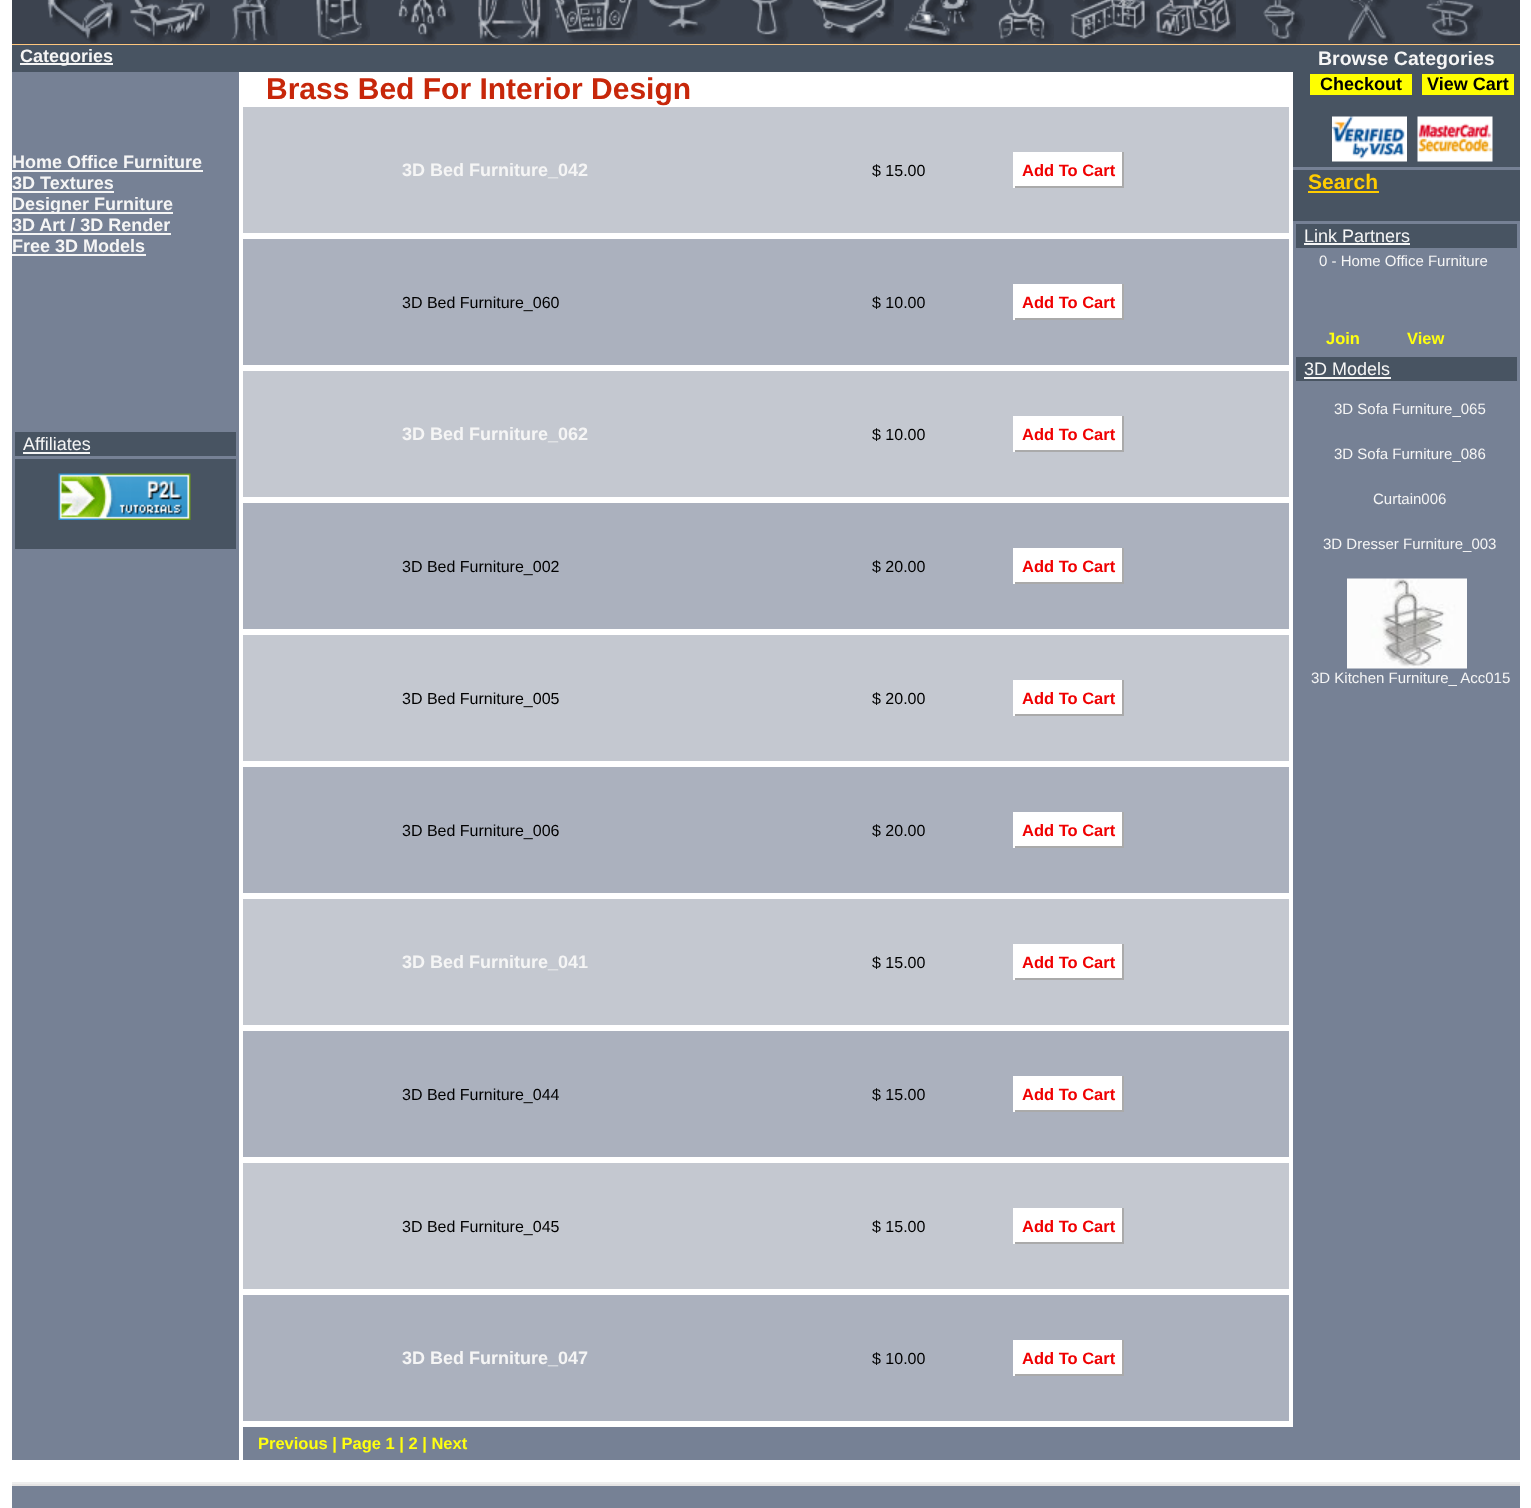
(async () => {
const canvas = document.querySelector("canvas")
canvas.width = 1531
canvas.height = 1508
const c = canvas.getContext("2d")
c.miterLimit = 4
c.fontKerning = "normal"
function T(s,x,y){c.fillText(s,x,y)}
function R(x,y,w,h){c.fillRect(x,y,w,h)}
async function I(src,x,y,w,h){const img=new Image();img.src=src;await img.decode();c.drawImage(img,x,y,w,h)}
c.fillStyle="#fff"
R(0,0,1531,1508)
c.fillStyle="#3c434f"
R(12,0,1508,44)
c.fillStyle="#ffc77e"
R(12,44,1508,1)
await I("1.png",47,0,75,43)
await I("2.png",130,0,80,43)
await I("3.png",231,0,49,43)
await I("4.png",316,0,54,43)
await I("5.png",398,0,58,43)
await I("6.png",478,0,74,43)
await I("7.png",554,0,84,43)
await I("8.png",637,0,84,37)
await I("9.png",750,0,43,43)
await I("10.png",812,0,82,43)
await I("11.png",904,0,73,43)
await I("12.png",998,0,56,43)
await I("13.png",1070,0,81,43)
await I("14.png",1151,0,85,43)
await I("15.png",1263,0,42,43)
await I("16.png",1348,0,47,43)
await I("17.png",1426,0,57,43)
c.fillStyle="#768195"
R(12,72,227,1388)
c.fillStyle="#485462"
R(12,45,1508,27)
c.fillStyle="#f5f5f5"
R(20,63,93,2)
c.font="bold 18px Liberation Sans"
T("Categories",20,62)
T("Home Office Furniture",12,168)
R(12,170,191,2)
T("3D Textures",12,189)
R(12,191,102,2)
R(12,212,161,2)
T("Designer Furniture",12,210)
T("3D Art / 3D Render",12,231)
R(12,233,159,2)
T("Free 3D Models",12,252)
R(12,254,134,2)
c.fillStyle="#485462"
R(15,432,221,24)
c.font="18px Liberation Sans"
c.fillStyle="#f5f5f5"
T("Affiliates",23,450)
R(23,452,67,2)
c.fillStyle="#485462"
R(15,459,221,90)
await I("18.png",58,473,133,47)
c.font="bold 19.5px Liberation Sans"
c.fillStyle="#f5f5f5"
T("Browse Categories",1318,65)
c.font="bold 30px Liberation Sans"
c.fillStyle="#c7270a"
T("Brass Bed For Interior Design",266,99)
c.fillStyle="#c4c8d0"
R(243,107,1046,126)
c.font="bold 18px Liberation Sans"
c.fillStyle="#f5f5f5"
T("3D Bed Furniture_042",402,176)
c.font="16px Liberation Sans"
c.fillStyle="#000"
T("$ 15.00",872,176)
c.fillStyle="#fff"
R(1015,152,107,34)
c.font="bold 16.5px Liberation Sans"
c.fillStyle="#f00001"
T("Add To Cart",1022,176)
c.fillStyle="#aaa"
R(1122,152,2,36)
R(1013,186,111,2)
c.fillStyle="#fff"
R(1013,152,2,36)
c.fillStyle="#abb1be"
R(243,239,1046,126)
c.font="16px Liberation Sans"
c.fillStyle="#000"
T("3D Bed Furniture_060",402,308)
T("$ 10.00",872,308)
c.fillStyle="#fff"
R(1015,284,107,34)
c.font="bold 16.5px Liberation Sans"
c.fillStyle="#f00001"
T("Add To Cart",1022,308)
c.fillStyle="#aaa"
R(1122,284,2,36)
R(1013,318,111,2)
c.fillStyle="#fff"
R(1013,284,2,36)
c.fillStyle="#c4c8d0"
R(243,371,1046,126)
c.font="bold 18px Liberation Sans"
c.fillStyle="#f5f5f5"
T("3D Bed Furniture_062",402,440)
c.font="16px Liberation Sans"
c.fillStyle="#000"
T("$ 10.00",872,440)
c.fillStyle="#fff"
R(1015,416,107,34)
c.font="bold 16.5px Liberation Sans"
c.fillStyle="#f00001"
T("Add To Cart",1022,440)
c.fillStyle="#aaa"
R(1122,416,2,36)
R(1013,450,111,2)
c.fillStyle="#fff"
R(1013,416,2,36)
c.fillStyle="#abb1be"
R(243,503,1046,126)
c.font="16px Liberation Sans"
c.fillStyle="#000"
T("3D Bed Furniture_002",402,572)
T("$ 20.00",872,572)
c.fillStyle="#fff"
R(1015,548,107,34)
c.font="bold 16.5px Liberation Sans"
c.fillStyle="#f00001"
T("Add To Cart",1022,572)
c.fillStyle="#aaa"
R(1122,548,2,36)
R(1013,582,111,2)
c.fillStyle="#fff"
R(1013,548,2,36)
c.fillStyle="#c4c8d0"
R(243,635,1046,126)
c.font="16px Liberation Sans"
c.fillStyle="#000"
T("3D Bed Furniture_005",402,704)
T("$ 20.00",872,704)
c.fillStyle="#fff"
R(1015,680,107,34)
c.font="bold 16.5px Liberation Sans"
c.fillStyle="#f00001"
T("Add To Cart",1022,704)
c.fillStyle="#aaa"
R(1122,680,2,36)
R(1013,714,111,2)
c.fillStyle="#fff"
R(1013,680,2,36)
c.fillStyle="#abb1be"
R(243,767,1046,126)
c.font="16px Liberation Sans"
c.fillStyle="#000"
T("3D Bed Furniture_006",402,836)
T("$ 20.00",872,836)
c.fillStyle="#fff"
R(1015,812,107,34)
c.font="bold 16.5px Liberation Sans"
c.fillStyle="#f00001"
T("Add To Cart",1022,836)
c.fillStyle="#aaa"
R(1122,812,2,36)
R(1013,846,111,2)
c.fillStyle="#fff"
R(1013,812,2,36)
c.fillStyle="#c4c8d0"
R(243,899,1046,126)
c.font="bold 18px Liberation Sans"
c.fillStyle="#f5f5f5"
T("3D Bed Furniture_041",402,968)
c.font="16px Liberation Sans"
c.fillStyle="#000"
T("$ 15.00",872,968)
c.fillStyle="#fff"
R(1015,944,107,34)
c.font="bold 16.5px Liberation Sans"
c.fillStyle="#f00001"
T("Add To Cart",1022,968)
c.fillStyle="#aaa"
R(1122,944,2,36)
R(1013,978,111,2)
c.fillStyle="#fff"
R(1013,944,2,36)
c.fillStyle="#abb1be"
R(243,1031,1046,126)
c.font="16px Liberation Sans"
c.fillStyle="#000"
T("3D Bed Furniture_044",402,1100)
T("$ 15.00",872,1100)
c.fillStyle="#fff"
R(1015,1076,107,34)
c.font="bold 16.5px Liberation Sans"
c.fillStyle="#f00001"
T("Add To Cart",1022,1100)
c.fillStyle="#aaa"
R(1122,1076,2,36)
R(1013,1110,111,2)
c.fillStyle="#fff"
R(1013,1076,2,36)
c.fillStyle="#c4c8d0"
R(243,1163,1046,126)
c.font="16px Liberation Sans"
c.fillStyle="#000"
T("3D Bed Furniture_045",402,1232)
T("$ 15.00",872,1232)
c.fillStyle="#fff"
R(1015,1208,107,34)
c.font="bold 16.5px Liberation Sans"
c.fillStyle="#f00001"
T("Add To Cart",1022,1232)
c.fillStyle="#aaa"
R(1122,1208,2,36)
R(1013,1242,111,2)
c.fillStyle="#fff"
R(1013,1208,2,36)
c.fillStyle="#abb1be"
R(243,1295,1046,126)
c.font="bold 18px Liberation Sans"
c.fillStyle="#f5f5f5"
T("3D Bed Furniture_047",402,1364)
c.font="16px Liberation Sans"
c.fillStyle="#000"
T("$ 10.00",872,1364)
c.fillStyle="#fff"
R(1015,1340,107,34)
c.font="bold 16.5px Liberation Sans"
c.fillStyle="#f00001"
T("Add To Cart",1022,1364)
c.fillStyle="#aaa"
R(1122,1340,2,36)
R(1013,1374,111,2)
c.fillStyle="#fff"
R(1013,1340,2,36)
c.fillStyle="#768195"
R(243,1427,1050,33)
c.fillStyle="#ffff10"
T("Previous | Page 1 | 2 | Next",258,1449)
c.fillStyle="#768195"
R(1293,221,227,1239)
c.fillStyle="#485462"
R(1293,72,227,95)
c.fillStyle="#768195"
R(1293,167,227,3)
c.fillStyle="#ff0"
R(1310,74,102,21)
c.font="bold 18px Liberation Sans"
c.fillStyle="#000"
T("Checkout",1320,90)
c.fillStyle="#ff0"
R(1422,74,92,21)
c.fillStyle="#000"
T("View Cart",1427,90)
await I("19.png",1332,116,75,46)
await I("20.png",1417,116,76,46)
c.fillStyle="#485462"
R(1293,170,227,51)
c.font="bold 21px Liberation Sans"
c.fillStyle="#fc0"
T("Search",1308,189)
R(1308,191,71,2)
c.fillStyle="#485462"
R(1296,224,221,24)
c.font="18px Liberation Sans"
c.fillStyle="#f5f5f5"
T("Link Partners",1304,242)
R(1304,243,106,2)
c.font="15px Liberation Sans"
T("0 - Home Office Furniture",1319,266)
c.font="bold 16.5px Liberation Sans"
c.fillStyle="#ffff10"
T("Join",1326,344)
T("View",1407,344)
c.fillStyle="#485462"
R(1296,357,221,24)
c.font="18px Liberation Sans"
c.fillStyle="#f5f5f5"
T("3D Models",1304,375)
R(1304,377,87,2)
c.font="15px Liberation Sans"
T("3D Sofa Furniture_065",1334,414)
T("3D Sofa Furniture_086",1334,459)
T("Curtain006",1373,504)
T("3D Dresser Furniture_003",1323,549)
await I("21.png",1347,578,120,91)
T("3D Kitchen Furniture_ Acc015",1311,683)
c.fillStyle="#eee"
R(12,1482,1508,2)
c.fillStyle="#768195"
R(12,1486,1508,22)
c.fillStyle="#e5e4e4"
R(12,1484,1508,2)
})()
